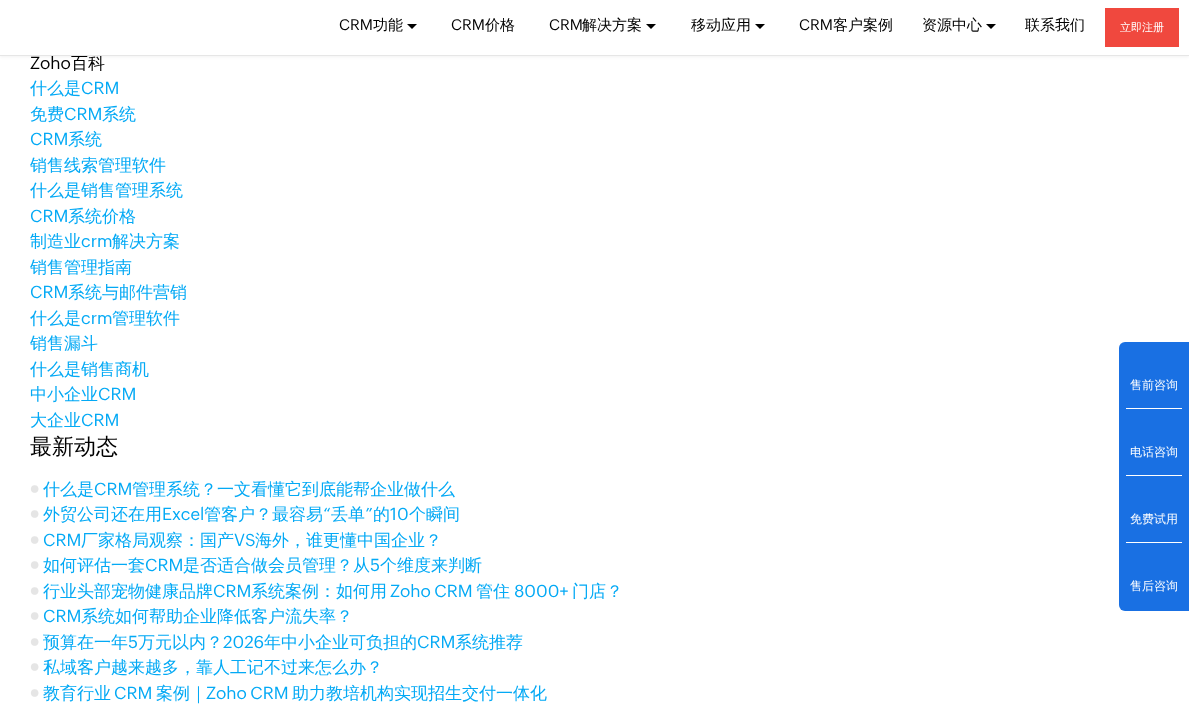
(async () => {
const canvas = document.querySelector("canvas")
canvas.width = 1189
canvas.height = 711
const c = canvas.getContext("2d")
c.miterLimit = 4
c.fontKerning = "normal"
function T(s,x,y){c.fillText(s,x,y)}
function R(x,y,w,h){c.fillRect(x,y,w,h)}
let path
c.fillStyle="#fff"
R(0,0,1189,711)
c.fillStyle="#0000000d"
c.filter="blur(1.5px)"
c.beginPath()
c.rect(0,1,1189,56)
c.fill()
c.filter="none"
c.fillStyle="#fff"
R(0,0,1189,55)
c.font="500 17px WenQuanYi Zen Hei"
c.fillStyle="#000"
T("百科",71,69)
c.fillStyle="#e6e6e6"
R(0,55,1189,1)
c.font="15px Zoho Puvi"
c.fillStyle="#000"
T("CRM",339,30)
c.font="500 15px WenQuanYi Zen Hei"
T("功能",373,30)
path = new Path2D("M407 24h10l-5 5z")
c.fill(path)
c.font="15px Zoho Puvi"
T("CRM",451,30)
c.font="500 15px WenQuanYi Zen Hei"
T("价格",485,30)
c.font="15px Zoho Puvi"
T("CRM",549,30)
c.font="500 15px WenQuanYi Zen Hei"
T("解决方案",582,30)
path = new Path2D("M646 24h10l-5 5z")
c.fill(path)
T("移动应用",691,30)
path = new Path2D("M755 24h10l-5 5z")
c.fill(path)
c.font="15px Zoho Puvi"
T("CRM",799,30)
c.font="500 15px WenQuanYi Zen Hei"
T("客户案例",833,30)
T("资源中心",922,30)
path = new Path2D("M986 24h10l-5 5z")
c.fill(path)
T("联系我们",1025,30)
c.fillStyle="#f0483e"
R(1105,8,74,39)
c.font="500 11px WenQuanYi Zen Hei"
c.fillStyle="#fff"
T("立即注册",1120,31)
c.font="17px Zoho Puvi"
c.fillStyle="#000"
T("Zoho",30,69)
c.font="500 17px WenQuanYi Zen Hei"
c.fillStyle="#03a9f5"
T("什么是",30,94)
c.font="17px Zoho Puvi"
T("CRM",81,94)
c.font="500 17px WenQuanYi Zen Hei"
T("免费",30,120)
c.font="17px Zoho Puvi"
T("CRM",64,120)
c.font="500 17px WenQuanYi Zen Hei"
T("系统",102,120)
c.font="17px Zoho Puvi"
T("CRM",30,145)
c.font="500 17px WenQuanYi Zen Hei"
T("系统",68,145)
T("销售线索管理软件",30,171)
T("什么是销售管理系统",30,196)
c.font="17px Zoho Puvi"
T("CRM",30,222)
c.font="500 17px WenQuanYi Zen Hei"
T("系统价格",68,222)
T("制造业",30,247)
c.font="17px Zoho Puvi"
T("crm",81,247)
c.font="500 17px WenQuanYi Zen Hei"
T("解决方案",112,247)
T("销售管理指南",30,273)
c.font="17px Zoho Puvi"
T("CRM",30,298)
c.font="500 17px WenQuanYi Zen Hei"
T("系统与邮件营销",68,298)
T("什么是",30,324)
c.font="17px Zoho Puvi"
T("crm",81,324)
c.font="500 17px WenQuanYi Zen Hei"
T("管理软件",112,324)
T("销售漏斗",30,349)
T("什么是销售商机",30,375)
T("中小企业",30,400)
c.font="17px Zoho Puvi"
T("CRM",98,400)
c.font="500 17px WenQuanYi Zen Hei"
T("大企业",30,426)
c.font="17px Zoho Puvi"
T("CRM",81,426)
c.font="500 22px WenQuanYi Zen Hei"
c.fillStyle="#000"
T("最新动态",30,454)
c.font="17px Zoho Puvi"
c.fillStyle="#e5e5e5"
T("●",30,495)
c.font="500 17px WenQuanYi Zen Hei"
c.fillStyle="#03a9f5"
T("什么是",43,495)
c.font="17px Zoho Puvi"
T("CRM",94,495)
c.font="500 17px WenQuanYi Zen Hei"
T("管理系统？一文看懂它到底能帮企业做什么",132,495)
c.font="17px Zoho Puvi"
c.fillStyle="#e5e5e5"
T("●",30,520)
c.font="500 17px WenQuanYi Zen Hei"
c.fillStyle="#03a9f5"
T("外贸公司还在用",43,520)
c.font="17px Zoho Puvi"
T("Excel",162,520)
c.font="500 17px WenQuanYi Zen Hei"
T("管客户？最容易",204,520)
c.font="17px Zoho Puvi"
T("“",323,520)
c.font="500 17px WenQuanYi Zen Hei"
T("丢单",331,520)
c.font="17px Zoho Puvi"
T("”",365,520)
c.font="500 17px WenQuanYi Zen Hei"
T("的",373,520)
c.font="17px Zoho Puvi"
T("10",390,520)
c.font="500 17px WenQuanYi Zen Hei"
T("个瞬间",409,520)
c.font="17px Zoho Puvi"
c.fillStyle="#e5e5e5"
T("●",30,546)
c.fillStyle="#03a9f5"
T("CRM",43,546)
c.font="500 17px WenQuanYi Zen Hei"
T("厂家格局观察：国产",81,546)
c.font="17px Zoho Puvi"
T("VS",234,546)
c.font="500 17px WenQuanYi Zen Hei"
T("海外，谁更懂中国企业？",255,546)
c.font="17px Zoho Puvi"
c.fillStyle="#e5e5e5"
T("●",30,571)
c.font="500 17px WenQuanYi Zen Hei"
c.fillStyle="#03a9f5"
T("如何评估一套",43,571)
c.font="17px Zoho Puvi"
T("CRM",145,571)
c.font="500 17px WenQuanYi Zen Hei"
T("是否适合做会员管理？从",183,571)
c.font="17px Zoho Puvi"
T("5",370,571)
c.font="500 17px WenQuanYi Zen Hei"
T("个维度来判断",380,571)
c.font="17px Zoho Puvi"
c.fillStyle="#e5e5e5"
T("●",30,597)
c.font="500 17px WenQuanYi Zen Hei"
c.fillStyle="#03a9f5"
T("行业头部宠物健康品牌",43,597)
c.font="17px Zoho Puvi"
T("CRM",213,597)
c.font="500 17px WenQuanYi Zen Hei"
T("系统案例：如何用",251,597)
c.font="17px Zoho Puvi"
T("Zoho CRM",390,597)
c.font="500 17px WenQuanYi Zen Hei"
T("管住",476,597)
c.font="17px Zoho Puvi"
T("8000+",514,597)
c.font="500 17px WenQuanYi Zen Hei"
T("门店？",572,597)
c.font="17px Zoho Puvi"
c.fillStyle="#e5e5e5"
T("●",30,622)
c.fillStyle="#03a9f5"
T("CRM",43,622)
c.font="500 17px WenQuanYi Zen Hei"
T("系统如何帮助企业降低客户流失率？",81,622)
c.font="17px Zoho Puvi"
c.fillStyle="#e5e5e5"
T("●",30,648)
c.font="500 17px WenQuanYi Zen Hei"
c.fillStyle="#03a9f5"
T("预算在一年",43,648)
c.font="17px Zoho Puvi"
T("5",128,648)
c.font="500 17px WenQuanYi Zen Hei"
T("万元以内？",138,648)
c.font="17px Zoho Puvi"
T("2026",223,648)
c.font="500 17px WenQuanYi Zen Hei"
T("年中小企业可负担的",264,648)
c.font="17px Zoho Puvi"
T("CRM",417,648)
c.font="500 17px WenQuanYi Zen Hei"
T("系统推荐",455,648)
c.font="17px Zoho Puvi"
c.fillStyle="#e5e5e5"
T("●",30,673)
c.font="500 17px WenQuanYi Zen Hei"
c.fillStyle="#03a9f5"
T("私域客户越来越多，靠人工记不过来怎么办？",43,673)
c.font="17px Zoho Puvi"
c.fillStyle="#e5e5e5"
T("●",30,699)
c.font="500 17px WenQuanYi Zen Hei"
c.fillStyle="#03a9f5"
T("教育行业",43,699)
c.font="17px Zoho Puvi"
T("CRM",114,699)
c.font="500 17px WenQuanYi Zen Hei"
T("案例｜",156,699)
c.font="17px Zoho Puvi"
T("Zoho CRM",206,699)
c.font="500 17px WenQuanYi Zen Hei"
T("助力教培机构实现招生交付一体化",292,699)
c.fillStyle="#1970e3"
c.beginPath()
c.roundRect(1119,342,70,269,[6,0,0,6])
c.fill()
c.font="500 12px WenQuanYi Zen Hei"
c.fillStyle="#fff"
T("售前咨询",1130,389)
R(1126,408,56,1)
T("电话咨询",1130,456)
R(1126,475,56,1)
T("免费试用",1130,523)
R(1126,542,56,1)
T("售后咨询",1130,590)
})()
